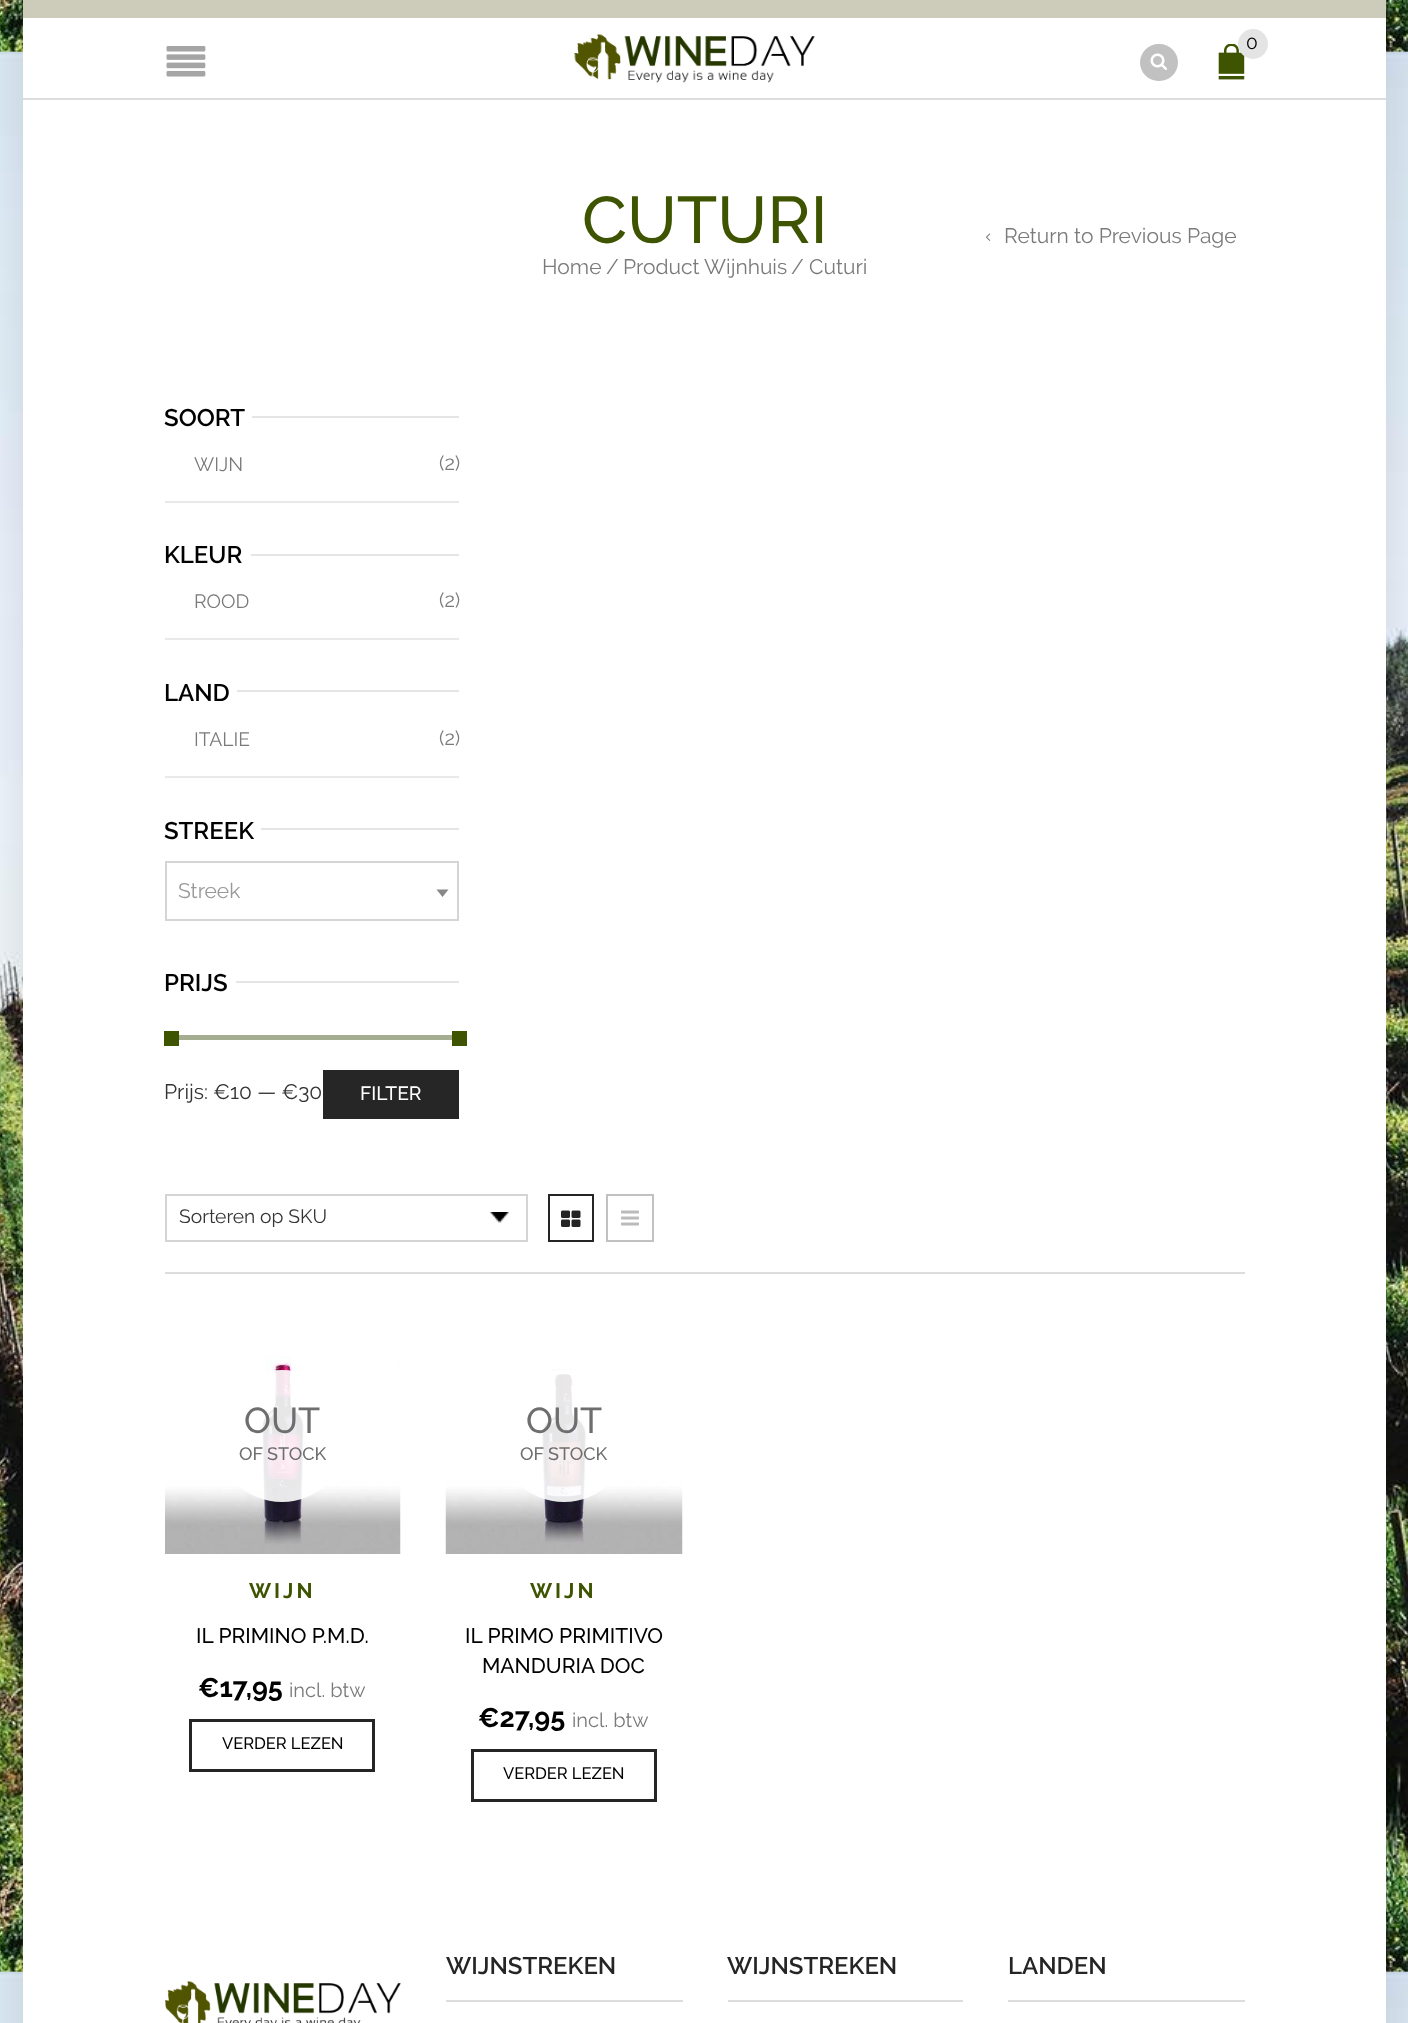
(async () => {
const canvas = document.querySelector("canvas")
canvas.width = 1408
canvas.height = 2023
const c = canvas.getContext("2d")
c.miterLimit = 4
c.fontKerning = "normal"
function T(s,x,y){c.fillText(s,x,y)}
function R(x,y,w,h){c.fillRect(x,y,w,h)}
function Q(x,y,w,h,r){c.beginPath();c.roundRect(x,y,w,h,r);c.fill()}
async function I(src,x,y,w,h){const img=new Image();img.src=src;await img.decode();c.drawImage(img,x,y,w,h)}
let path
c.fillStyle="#fff"
R(0,0,1408,2023)
await I("1.png",0,0,1408,2023)
c.fillStyle="#0000001a"
c.filter="blur(22.5px)"
c.beginPath()
c.rect(23,0,1363,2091)
c.fill()
c.filter="none"
c.fillStyle="#fff"
R(23,18,1363,2005)
c.fillStyle="#cdccba"
R(23,0,1363,18)
await I("2.png",574,34,241,49)
c.fillStyle="#c1c1c1"
Q(1140,44,38,37,18.5)
await I("3.png",1150,53,17,17)
await I("4.png",1218,44,27,36)
c.fillStyle="#e4e4e4"
c.beginPath()
c.arc(1253,44,15,0,7)
c.fill()
c.font="19.25px Raleway"
c.fillStyle="#000"
T("0",1246,49)
await I("5.png",166,46,40,31)
c.fillStyle="#ddd"
R(23,98,1363,2)
c.font="500 66px Raleway"
c.fillStyle="#3e5400"
T("CUTURI",582,243)
await I("6.png",985,233,6,8)
c.font="21px Raleway"
c.fillStyle="#7a7a7a"
T("Return to Previous Page",1004,243)
T("Home",542,274)
T("/",606,274)
T("Product Wijnhuis",623,274)
T("/",791,274)
T("Cuturi",809,274)
c.font="600 24px Raleway"
c.fillStyle="#000"
T("SOORT",164,426)
c.fillStyle="#e5e5e5"
R(252,416,207,2)
c.fillStyle="#e9e9e9"
R(165,501,294,2)
c.font="19.25px Raleway"
c.fillStyle="#7a7a7a"
T("WIJN",194,471)
c.font="20px Raleway"
T("(2)",439,470)
c.font="600 24px Raleway"
c.fillStyle="#000"
T("KLEUR",164,563)
c.fillStyle="#e5e5e5"
R(251,554,208,2)
c.fillStyle="#e9e9e9"
R(165,638,294,2)
c.font="19.25px Raleway"
c.fillStyle="#7a7a7a"
T("ROOD",194,608)
c.font="20px Raleway"
T("(2)",439,607)
c.font="600 24px Raleway"
c.fillStyle="#000"
T("LAND",164,701)
c.fillStyle="#e5e5e5"
R(237,690,222,2)
c.fillStyle="#e9e9e9"
R(165,776,294,2)
c.font="19.25px Raleway"
c.fillStyle="#7a7a7a"
T("ITALIE",194,746)
c.font="20px Raleway"
T("(2)",439,745)
c.font="600 24px Raleway"
c.fillStyle="#000"
T("STREEK",164,839)
c.fillStyle="#e5e5e5"
R(261,828,198,2)
c.strokeStyle="#d5d5d5"
c.lineWidth=2
c.strokeRect(166,862,292,58)
c.font="21px Raleway"
c.fillStyle="#999"
T("Streek",178,898)
c.fillStyle="#888"
path = new Path2D("M436.5 889.5h12l-6 7.5z")
c.fill(path)
c.font="600 24px Raleway"
c.fillStyle="#000"
T("PRIJS",164,991)
c.fillStyle="#e5e5e5"
R(236,981,223,2)
c.fillStyle="#3e5400"
R(164,1031,15,15)
c.fillStyle="#a5ad90"
R(179,1035,280,5)
c.fillStyle="#3e5400"
R(452,1031,15,15)
c.font="21px Raleway"
c.fillStyle="#333"
T("Prijs: €10 — €30",164,1099)
c.fillStyle="#262626"
R(323,1070,136,49)
c.font="500 19.25px Raleway"
c.fillStyle="#fff"
T("FILTER",360,1100)
c.fillStyle="#ddd"
R(165,1272,1080,2)
await I("7.png",490,1212,19,11)
c.strokeRect(166,1195,361,46)
c.font="19.25px Raleway"
c.fillStyle="#333"
T("Sorteren op SKU",179,1223)
c.strokeStyle="#252525"
c.strokeRect(549,1195,44,46)
await I("8.png",561,1210,20,17)
c.strokeStyle="#c1c1c1"
c.strokeRect(607,1195,46,46)
await I("9.png",621,1210,18,16)
await I("10.png",165,1356,236,198)
c.fillStyle="#ffffffe6"
c.beginPath()
c.arc(282,1436,66,0,7)
c.fill()
c.font="500 36px Raleway"
c.fillStyle="#6e6e6e"
T("OUT",244,1433)
c.font="500 18px Raleway"
T("OF STOCK",239,1460)
c.letterSpacing="3px"
c.font="bold 21px Raleway"
c.fillStyle="#3e5400"
T("WIJN",249,1598)
c.letterSpacing="0px"
c.font="500 21px Raleway"
c.fillStyle="#000"
T("IL PRIMINO P.M.D.",196,1643)
c.font="bold 27px Raleway"
T("€17,95",198,1697)
c.font="20px Raleway"
c.fillStyle="#7a7a7a"
T("incl. btw",289,1697)
c.strokeStyle="#252525"
c.lineWidth=3
c.strokeRect(190.5,1720.5,183,50)
c.font="500 16.5px Raleway"
c.fillStyle="#000"
T("VERDER LEZEN",222,1749)
await I("11.png",445,1369,238,185)
c.fillStyle="#ffffffe6"
c.beginPath()
c.arc(564,1436,66,0,7)
c.fill()
c.font="500 36px Raleway"
c.fillStyle="#6e6e6e"
T("OUT",526,1433)
c.font="500 18px Raleway"
T("OF STOCK",520,1460)
c.letterSpacing="3px"
c.font="bold 21px Raleway"
c.fillStyle="#3e5400"
T("WIJN",530,1598)
c.letterSpacing="0px"
c.font="500 21px Raleway"
c.fillStyle="#000"
T("IL PRIMO PRIMITIVO",465,1643)
T("MANDURIA DOC",482,1673)
c.font="bold 27px Raleway"
T("€27,95",478,1727)
c.font="20px Raleway"
c.fillStyle="#7a7a7a"
T("incl. btw",572,1727)
c.strokeRect(472.5,1750.5,183,50)
c.font="500 16.5px Raleway"
c.fillStyle="#000"
T("VERDER LEZEN",503,1779)
c.fillStyle="#ddd"
R(446,2000,237,2)
c.font="600 24px Raleway"
c.fillStyle="#252525"
T("WIJNSTREKEN",446,1974)
c.fillStyle="#ddd"
R(728,2000,235,2)
c.fillStyle="#252525"
T("WIJNSTREKEN",727,1974)
c.fillStyle="#ddd"
R(1008,2000,237,2)
c.fillStyle="#252525"
T("LANDEN",1008,1974)
await I("12.png",165,1981,236,42)
})()
